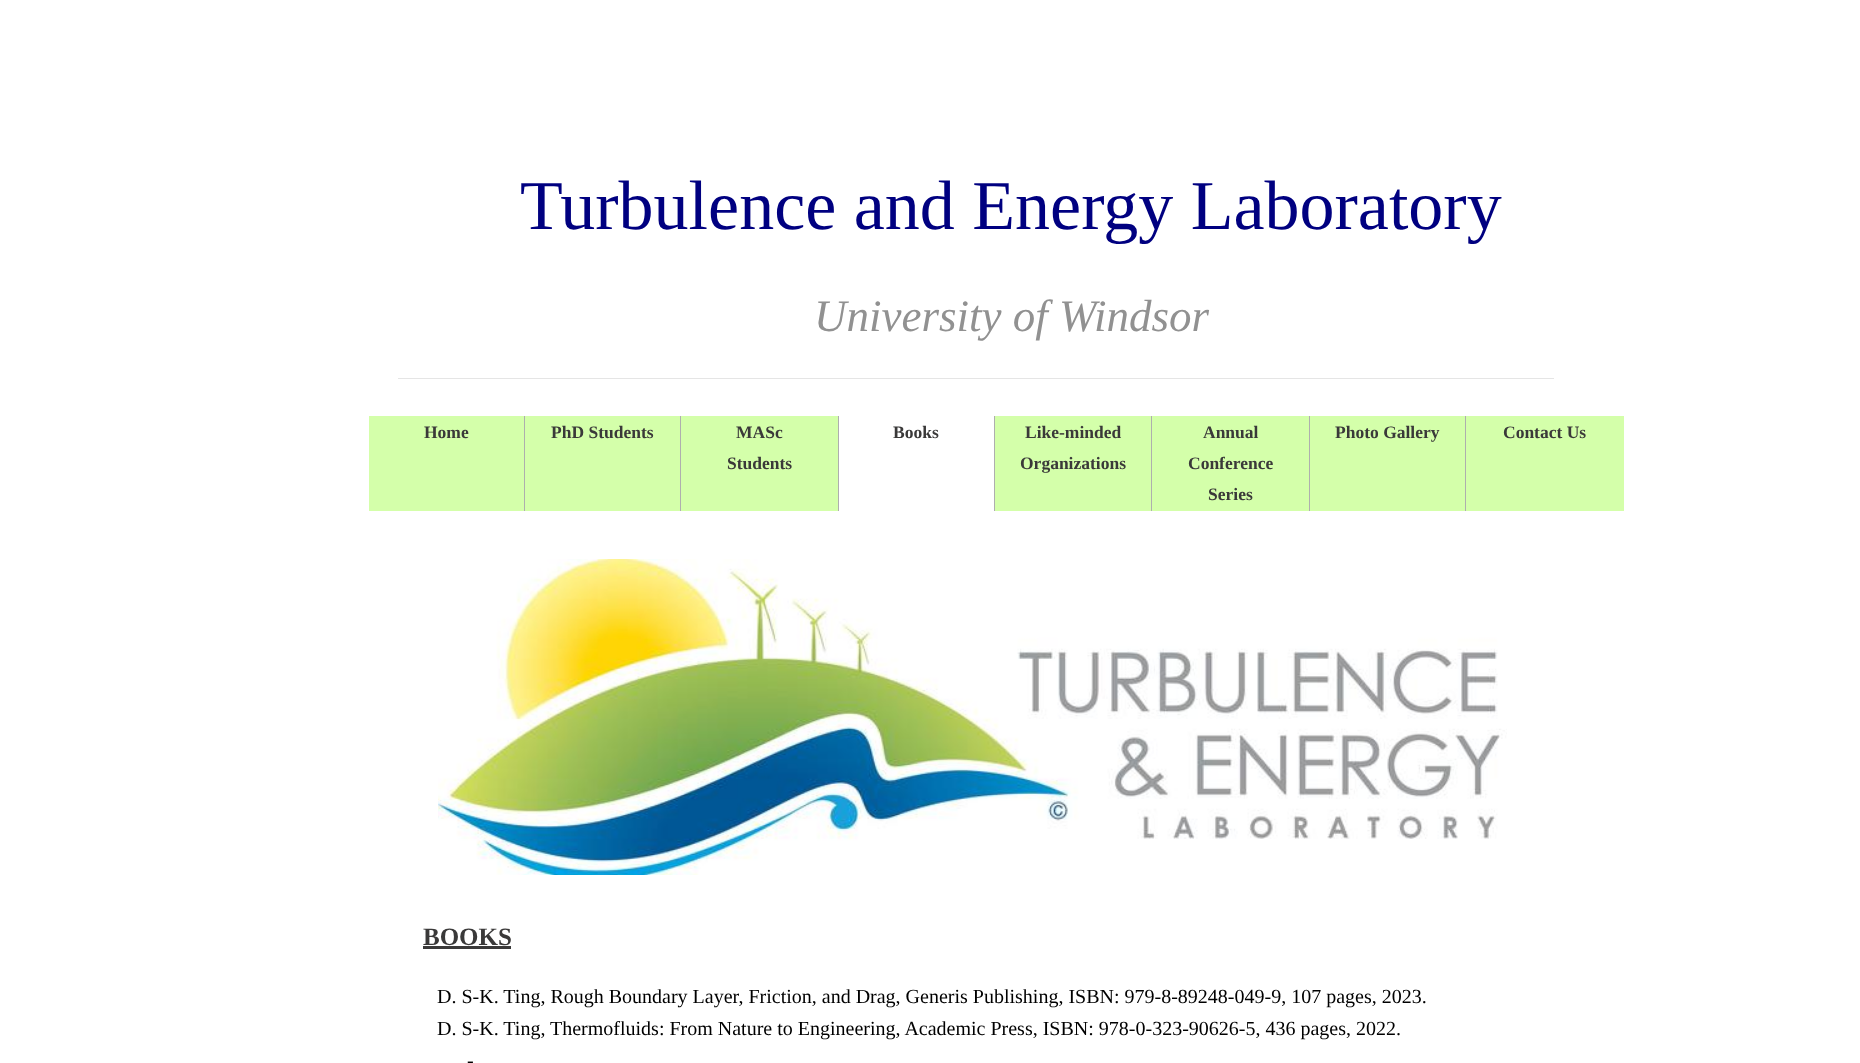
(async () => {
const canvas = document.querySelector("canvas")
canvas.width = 1860
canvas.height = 1063
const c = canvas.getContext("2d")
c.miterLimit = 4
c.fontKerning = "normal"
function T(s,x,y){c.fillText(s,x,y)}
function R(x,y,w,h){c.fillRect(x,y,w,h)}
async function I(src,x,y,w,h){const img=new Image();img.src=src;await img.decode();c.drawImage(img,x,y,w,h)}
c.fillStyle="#fff"
R(0,0,1860,1063)
c.font="70px Liberation Serif"
c.fillStyle="#000080"
T("Turbulence and Energy Laboratory",520,229)
c.font="italic 45px Liberation Serif"
c.fillStyle="#919191"
T("University of Windsor",814,331)
c.fillStyle="#e5e5e5"
R(398,378,1156,1)
c.fillStyle="#d4ffaa"
R(369,416,155,95)
c.fillStyle="#aeaeae"
R(524,416,1,95)
c.font="bold 17.5px Liberation Serif"
c.fillStyle="#3a3939"
T("Home",424,438)
c.fillStyle="#d4ffaa"
R(525,416,155,95)
c.fillStyle="#aeaeae"
R(680,416,1,95)
c.fillStyle="#3a3939"
T("PhD Students",551,438)
c.fillStyle="#d4ffaa"
R(681,416,157,95)
c.fillStyle="#aeaeae"
R(838,416,1,95)
c.fillStyle="#3a3939"
T("MASc",736,438)
T("Students",727,469)
c.fillStyle="#aeaeae"
R(994,416,1,95)
c.fillStyle="#3a3939"
T("Books",893,438)
c.fillStyle="#d4ffaa"
R(995,416,314,95)
c.fillStyle="#aeaeae"
R(1151,416,1,95)
c.fillStyle="#3a3939"
T("Like-minded",1025,438)
T("Organizations",1020,469)
c.fillStyle="#aeaeae"
R(1309,416,1,95)
c.fillStyle="#3a3939"
T("Annual",1203,438)
T("Conference",1188,469)
T("Series",1208,500)
c.fillStyle="#d4ffaa"
R(1310,416,155,95)
c.fillStyle="#aeaeae"
R(1465,416,1,95)
c.fillStyle="#3a3939"
T("Photo Gallery",1335,438)
c.fillStyle="#d4ffaa"
R(1466,416,158,95)
c.fillStyle="#3a3939"
T("Contact Us",1503,438)
await I("1.png",438,559,1069,316)
c.font="bold 25px Liberation Serif"
T("BOOKS",423,945)
R(423,946,88,3)
c.font="20px Liberation Serif"
c.fillStyle="#000"
T("D. S-K. Ting, Rough Boundary Layer, Friction, and Drag, Generis Publishing, ISBN: 979-8-89248-049-9, 107 pages, 2023.",437,1003)
T("D. S-K. Ting, Thermofluids: From Nature to Engineering, Academic Press, ISBN: 978-0-323-90626-5, 436 pages, 2022.",437,1035)
T("-",467,1067)
})()
